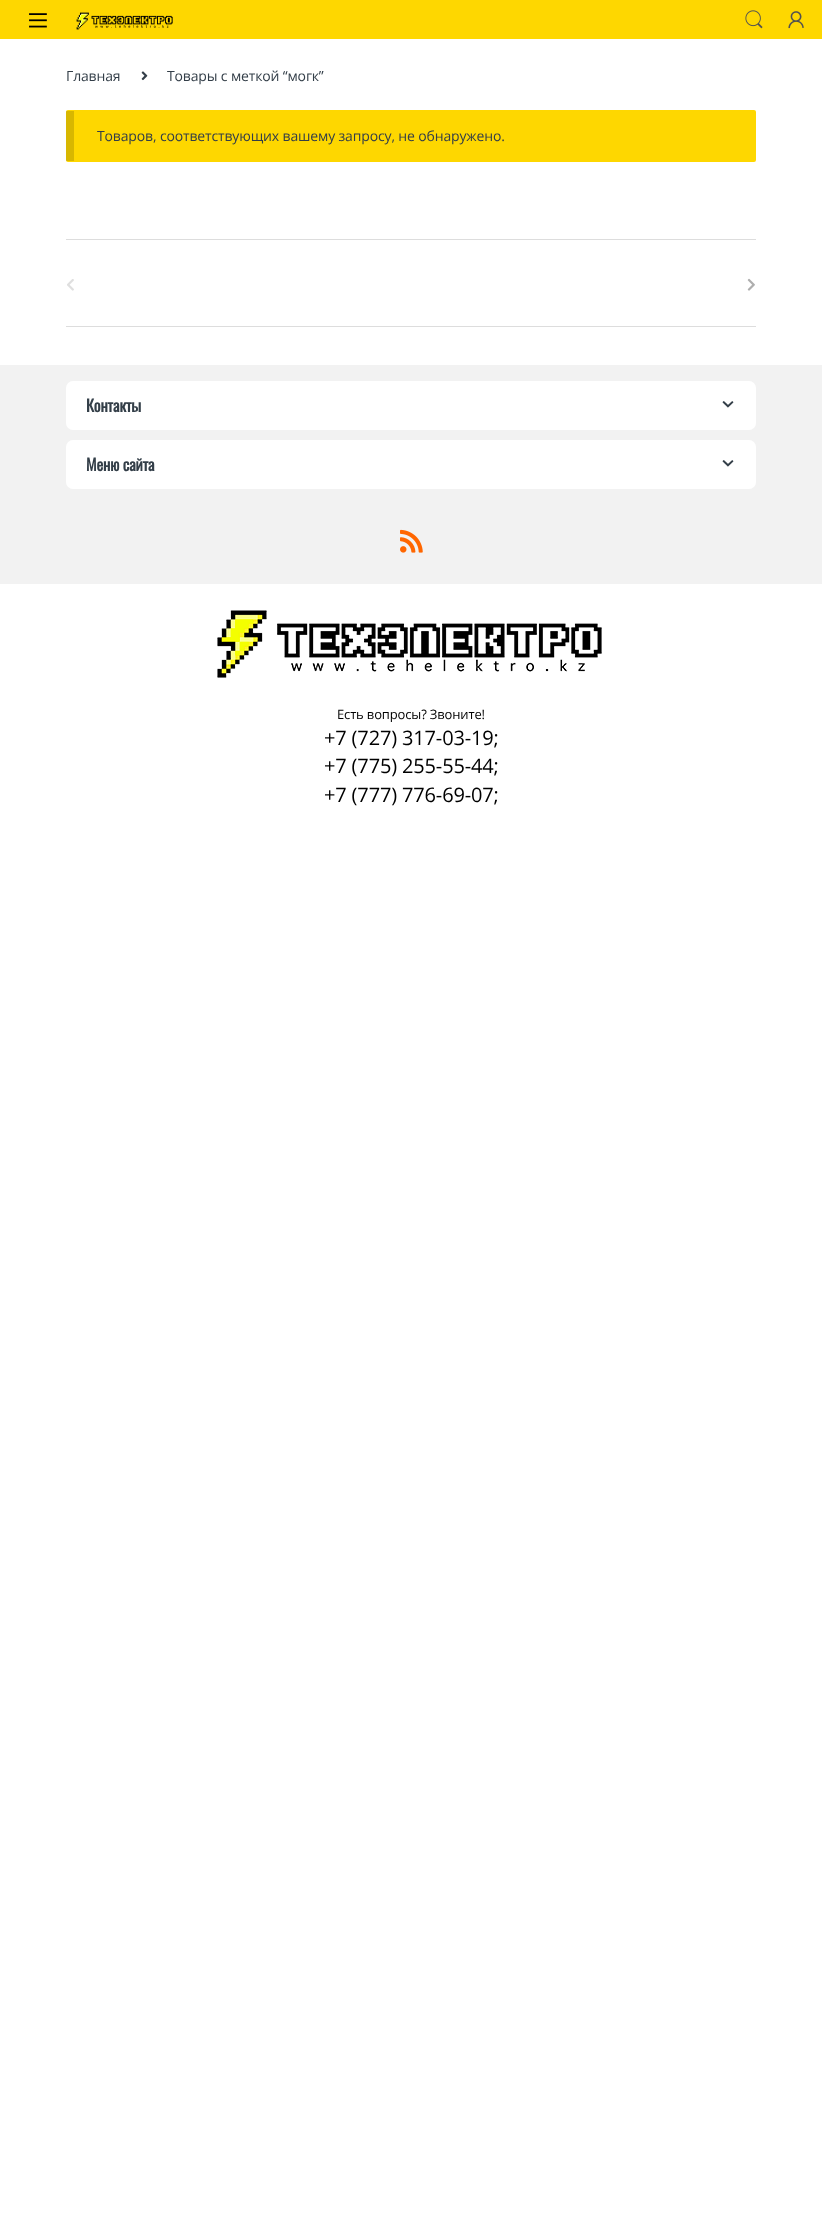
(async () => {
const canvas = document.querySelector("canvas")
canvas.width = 822
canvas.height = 2217
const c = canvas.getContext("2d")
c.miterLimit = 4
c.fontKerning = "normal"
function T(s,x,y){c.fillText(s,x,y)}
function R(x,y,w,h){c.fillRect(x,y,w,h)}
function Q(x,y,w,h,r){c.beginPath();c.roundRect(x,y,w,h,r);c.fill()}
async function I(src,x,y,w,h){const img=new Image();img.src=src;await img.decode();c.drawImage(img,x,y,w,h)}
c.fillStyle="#fff"
R(0,0,822,2217)
c.fillStyle="#fed700"
R(0,0,822,39)
await I("1.png",29,13,18,15)
await I("2.png",76,12,97,18)
await I("3.png",745,10,18,19)
await I("4.png",788,11,16,18)
c.letterSpacing="-0.15px"
c.font="14px Open Sans"
c.fillStyle="#333e48"
T("Главная",66,81)
await I("5.png",141,71,7,10)
T("Товары с меткой “могк”",167,81)
c.fillStyle="#fed700"
Q(66,110,690,52,2)
c.fillStyle="#00000026"
R(66,111,8,50)
c.fillStyle="#333e48"
T("Товаров, соответствующих вашему запросу, не обнаружено.",97,141)
c.fillStyle="#ddd"
R(66,239,690,1)
R(66,326,690,1)
await I("6.png",67,279,7,12)
await I("7.png",747,278,8,13)
c.fillStyle="#f2f2f2"
R(0,365,822,219)
c.fillStyle="#fff"
Q(66,381,690,49,7)
c.font="bold 16px Oswald"
c.fillStyle="#333e48"
T("Контакты",86,412)
await I("8.png",722,401,12,7)
c.fillStyle="#fff"
Q(66,440,690,49,7)
c.fillStyle="#333e48"
T("Меню сайта",86,471)
await I("8.png",722,460,12,7)
await I("9.png",400,529,23,24)
await I("10.png",217,610,385,68)
c.font="13px Open Sans"
c.fillStyle="#000"
T("Есть вопросы? Звоните!",337,719)
c.font="20px Open Sans"
T("+7 (727) 317-03-19;",324,745)
T("+7 (775) 255-55-44;",324,773)
T("+7 (777) 776-69-07;",324,802)
})()
